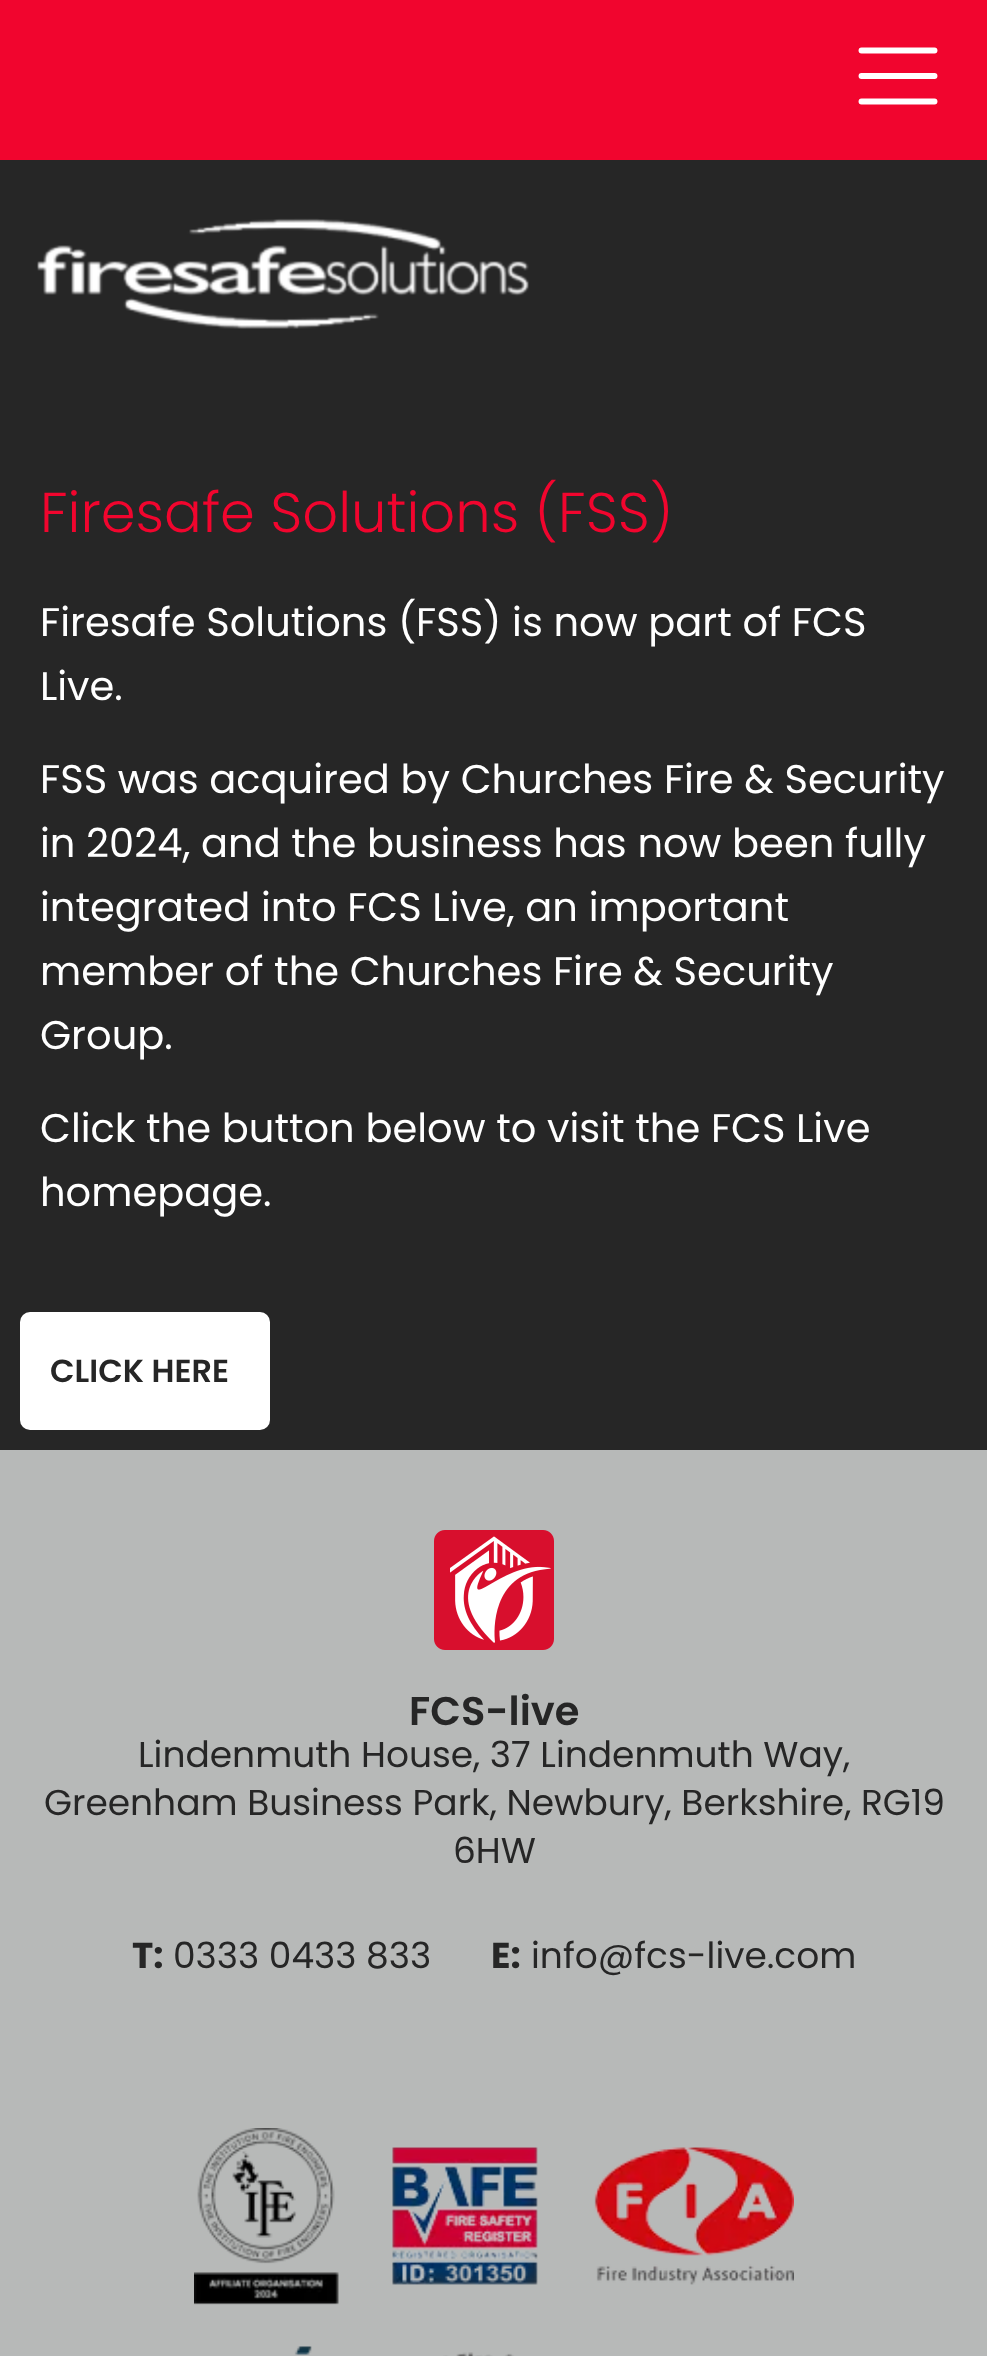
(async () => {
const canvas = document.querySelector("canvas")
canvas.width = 987
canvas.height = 2356
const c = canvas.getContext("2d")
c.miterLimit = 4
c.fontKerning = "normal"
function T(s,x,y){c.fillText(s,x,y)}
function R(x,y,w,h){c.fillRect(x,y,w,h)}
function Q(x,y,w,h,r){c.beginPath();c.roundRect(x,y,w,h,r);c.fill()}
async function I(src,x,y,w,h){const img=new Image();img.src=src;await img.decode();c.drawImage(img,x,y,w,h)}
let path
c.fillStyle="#262626"
R(0,0,987,2356)
c.fillStyle="#f1052e"
R(0,0,987,160)
path = new Path2D("M861.5 50.5h73")
c.strokeStyle="#fff"
c.lineWidth=5.9
c.lineCap="round"
c.lineJoin="round"
c.stroke(path)
path = new Path2D("M861.5 76h73")
c.stroke(path)
path = new Path2D("M861.5 101.5h73")
c.stroke(path)
await I("1.png",37,218,492,111)
c.font="300 56px Poppins"
T("Firesafe Solutions (FSS)",40,532)
c.font="40px Poppins"
c.fillStyle="#fff"
T("Firesafe Solutions (FSS) is now part of FCS",40,636)
T("Live.",40,700)
T("FSS was acquired by Churches Fire & Security",40,793)
T("in 2024, and the business has now been fully",40,857)
T("integrated into FCS Live, an important",40,921)
T("member of the Churches Fire & Security",40,985)
T("Group.",40,1049)
T("Click the button below to visit the FCS Live",40,1142)
T("homepage.",40,1206)
Q(20,1312,250,118,10)
c.font="600 32px Poppins"
c.fillStyle="#262626"
T("CLICK HERE",50,1382)
c.fillStyle="#b7b9b8"
R(0,1450,987,906)
await I("2.png",434,1530,120,120)
c.font="600 40px Poppins"
c.fillStyle="#262626"
T("FCS-live",409,1725)
c.font="36px Poppins"
T("Lindenmuth House, 37 Lindenmuth Way,",138,1767)
T("Greenham Business Park, Newbury, Berkshire, RG19",44,1815)
T("6HW",453,1863)
c.font="bold 36px Poppins"
T("T:",132,1968)
c.font="36px Poppins"
T("0333 0433 833",173,1968)
c.font="bold 36px Poppins"
T("E:",491,1968)
c.font="36px Poppins"
T("info@fcs-live.com",531,1968)
await I("3.png",194,2128,600,228)
})()
